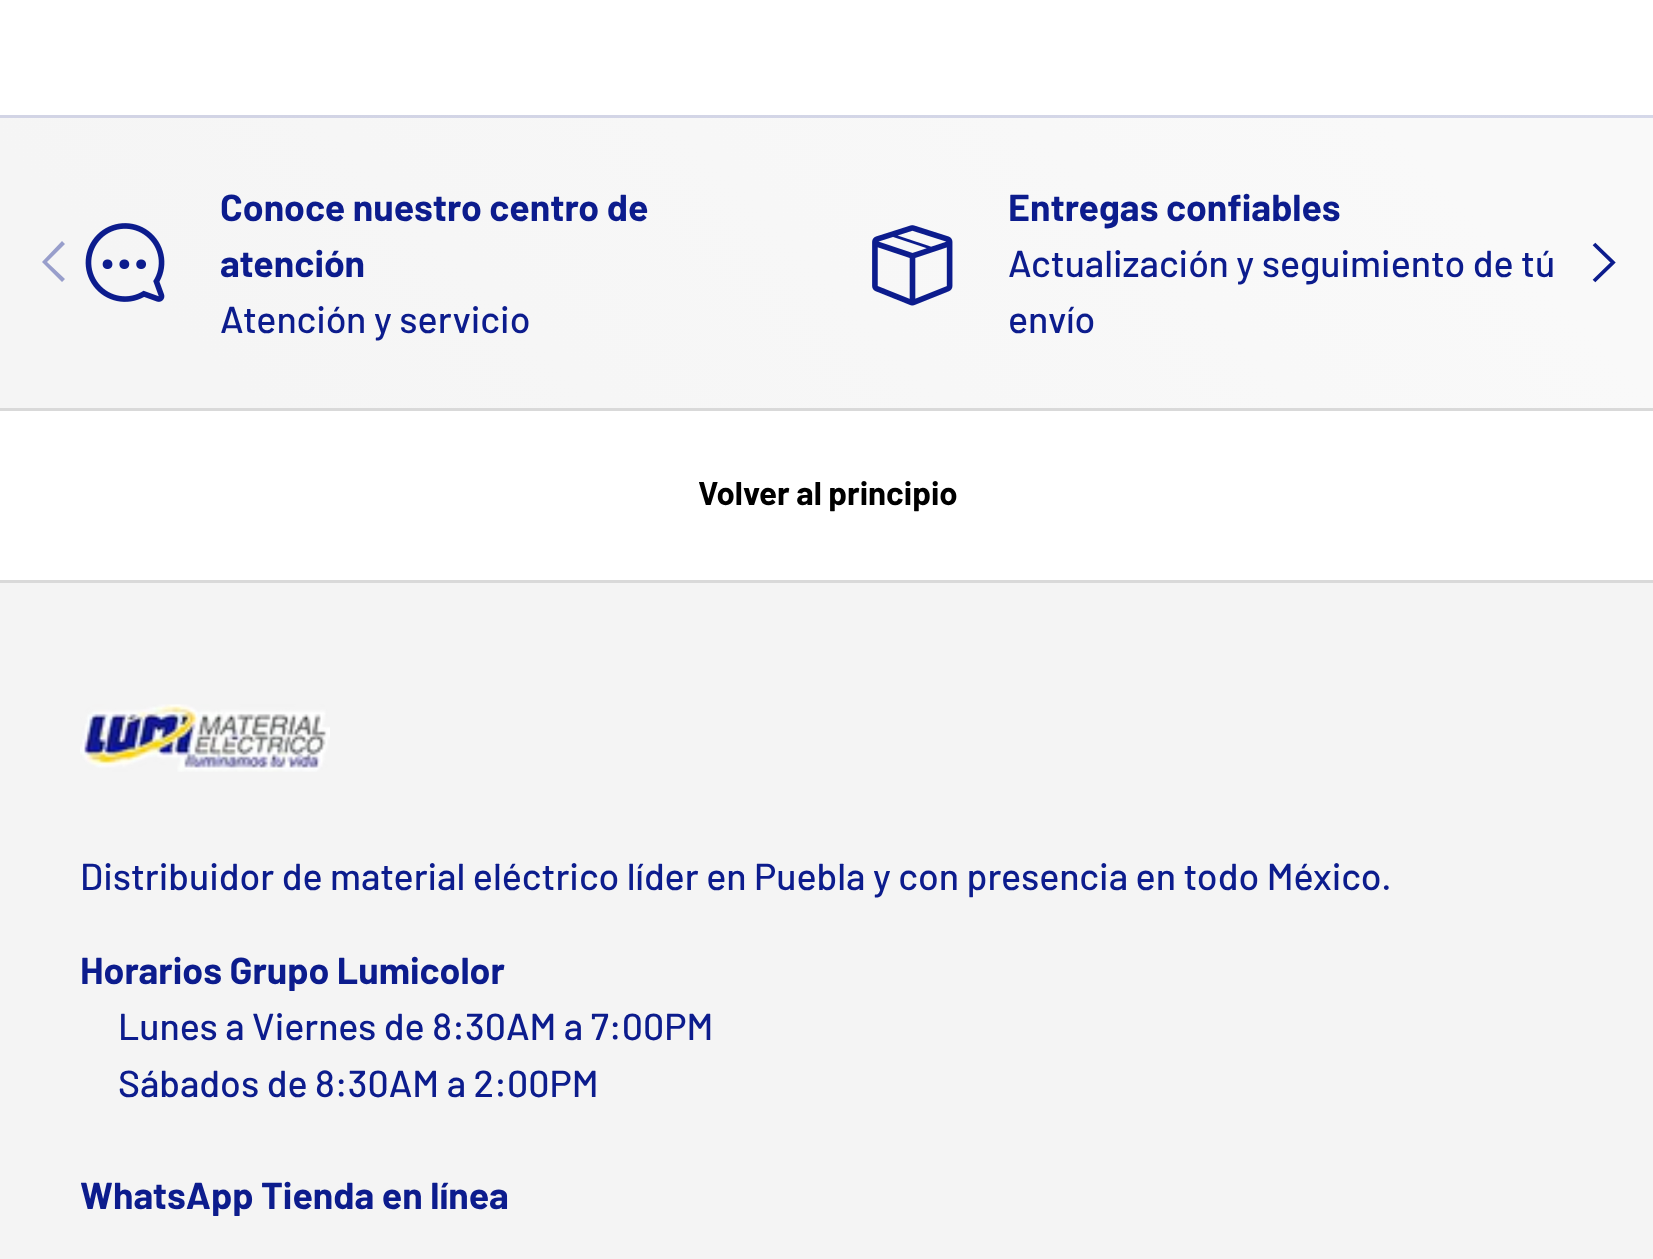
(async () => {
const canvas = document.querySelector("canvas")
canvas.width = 1653
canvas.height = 1259
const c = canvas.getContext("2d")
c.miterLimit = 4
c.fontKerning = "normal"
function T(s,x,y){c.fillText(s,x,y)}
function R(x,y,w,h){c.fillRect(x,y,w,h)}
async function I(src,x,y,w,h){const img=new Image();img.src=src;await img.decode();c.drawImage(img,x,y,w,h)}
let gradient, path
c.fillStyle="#fff"
R(0,0,1653,1259)
gradient = c.createLinearGradient(327,456,1328,-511)
gradient.addColorStop(.13,"#d2d4e5")
gradient.addColorStop(.86,"#d5d8e9")
c.fillStyle = gradient
R(0,115,1653,3)
gradient = c.createLinearGradient(327,746,1328,-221)
gradient.addColorStop(.13,"#f5f5f5")
gradient.addColorStop(.86,"#f9f9f9")
c.fillStyle = gradient
R(0,118,1653,290)
await I("1.png",85,223,80,79)
c.font="bold 37.5px Barlow"
c.fillStyle="#0c1c8d"
T("Conoce nuestro centro de",220,221)
T("atención",220,277)
c.font="500 37.5px Barlow"
T("Atención y servicio",220,333)
await I("2.png",872,225,81,81)
c.font="bold 37.5px Barlow"
T("Entregas confiables",1008,221)
c.font="500 37.5px Barlow"
T("Actualización y seguimiento de tú",1008,277)
T("envío",1008,333)
c.fillStyle="#989ecb"
path = new Path2D("M42 262l20-21l3 3l-18 18l18 17l-3 3z")
c.fill(path)
path = new Path2D("M1594 244l19 18.5l-19 18.5")
c.strokeStyle="#0c1c8d"
c.lineWidth=3.8
c.stroke(path)
c.fillStyle="#d9d9d9"
R(0,408,1653,3)
R(0,580,1653,3)
c.font="bold 33px Barlow"
c.fillStyle="#000"
T("Volver al principio",698,505)
c.fillStyle="#f4f4f4"
R(0,583,1653,676)
await I("3.png",80,704,250,68)
c.font="500 37.5px Barlow"
c.fillStyle="#0c1c8d"
T("Distribuidor de material eléctrico líder en Puebla y con presencia en todo México.",80,890)
c.font="bold 37.5px Barlow"
T("Horarios Grupo Lumicolor",80,984)
c.font="500 37.5px Barlow"
T("Lunes a Viernes de 8:30AM a 7:00PM",118,1040)
T("Sábados de 8:30AM a 2:00PM",118,1097)
c.font="bold 37.5px Barlow"
T("WhatsApp Tienda en línea",80,1209)
})()
